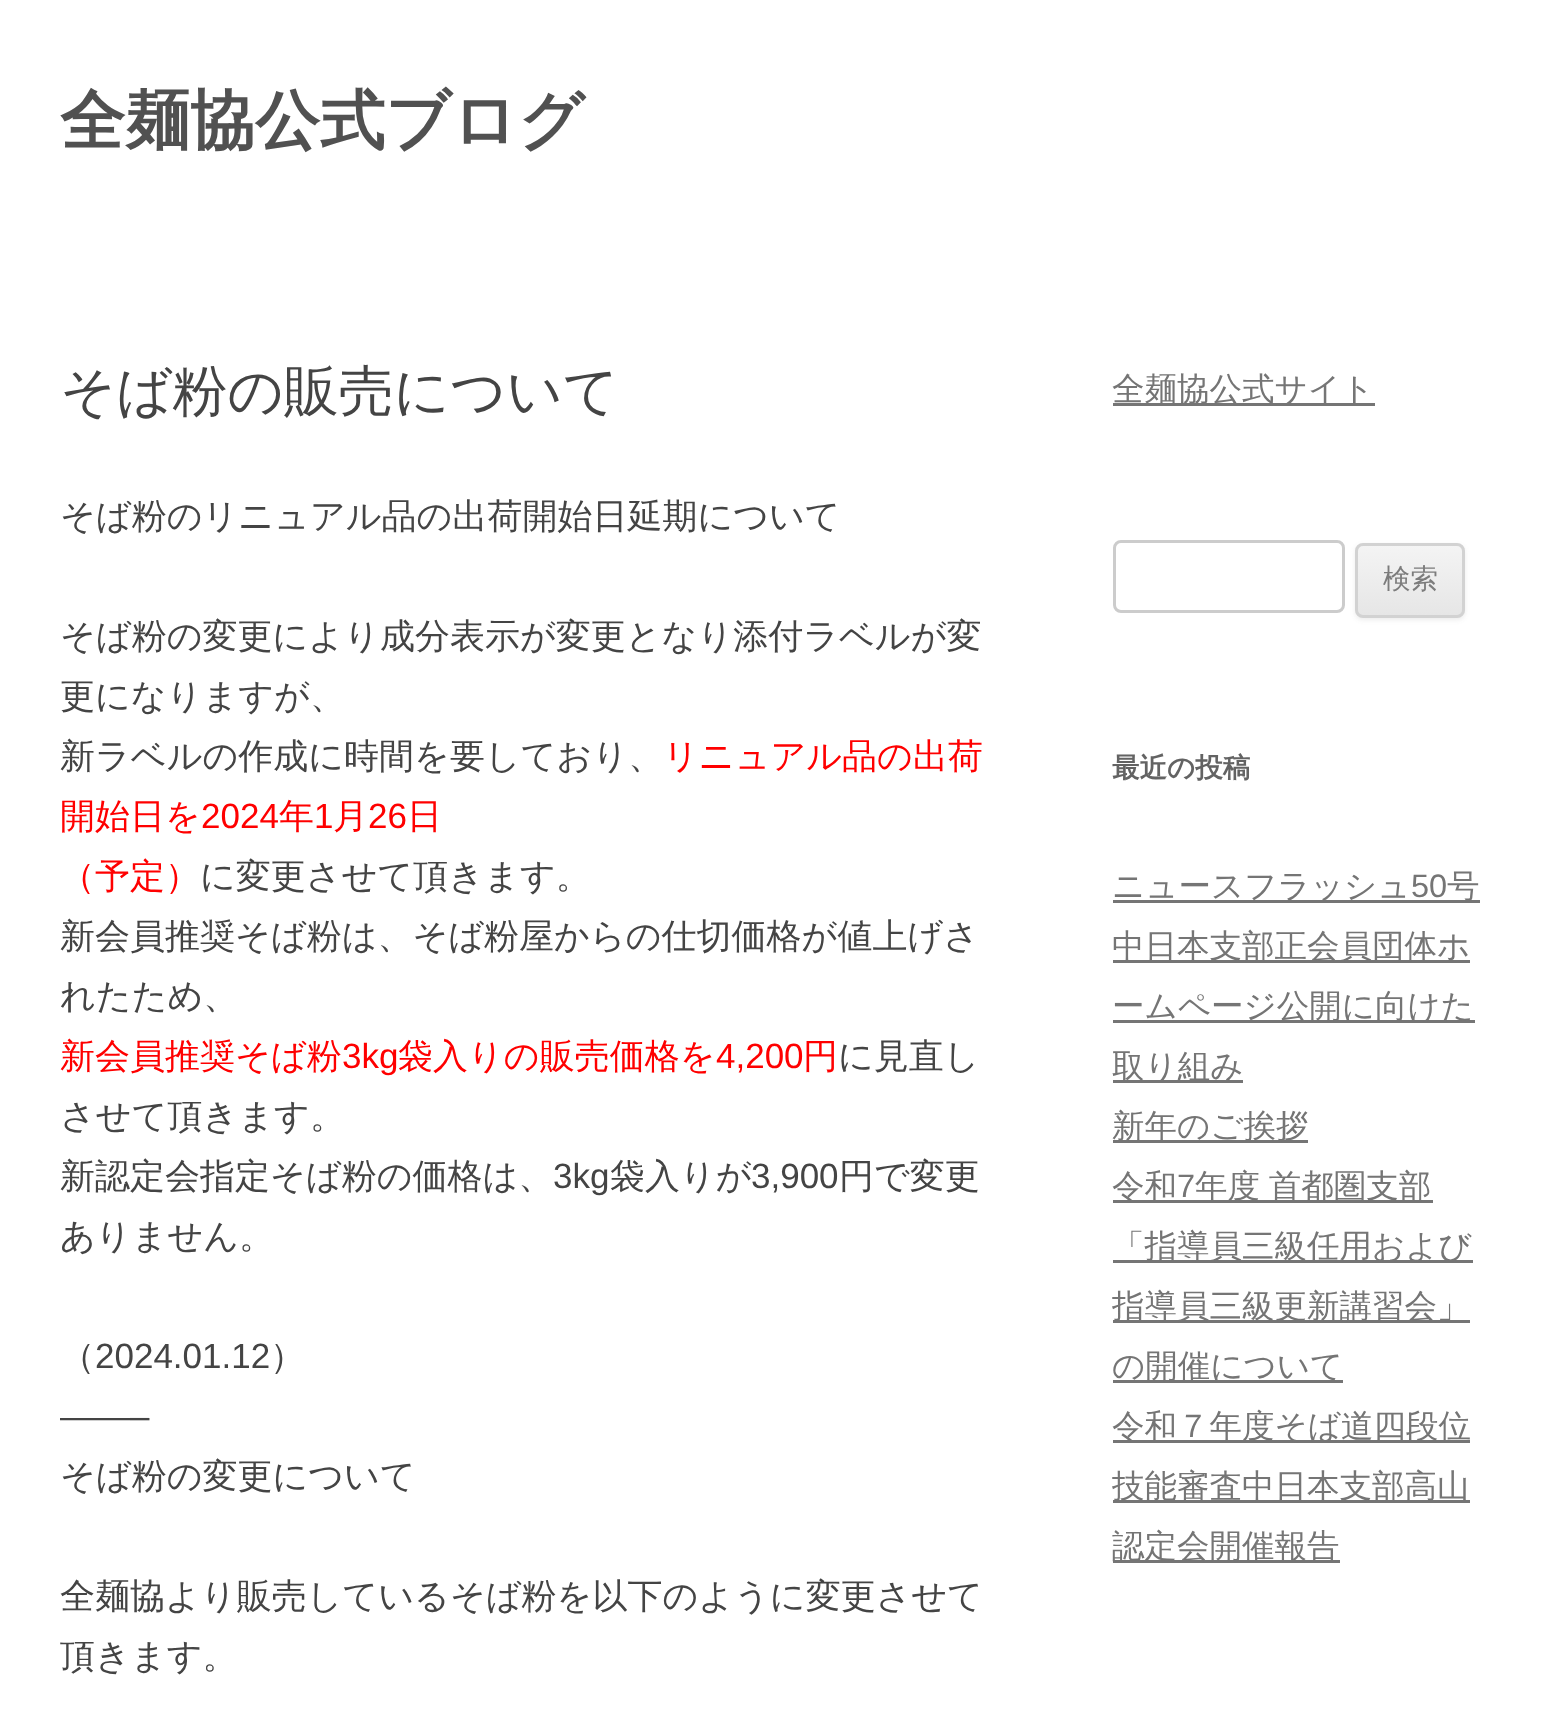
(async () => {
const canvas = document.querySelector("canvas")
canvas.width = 1542
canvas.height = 1710
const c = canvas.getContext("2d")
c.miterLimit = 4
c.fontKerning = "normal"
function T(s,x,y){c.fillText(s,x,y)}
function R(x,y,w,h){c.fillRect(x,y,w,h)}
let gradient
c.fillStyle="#fff"
R(0,0,1542,1710)
c.font="bold 65px WenQuanYi Zen Hei"
c.fillStyle="#515151"
T("全麺協公式ブログ",60,143)
c.font="500 55px WenQuanYi Zen Hei"
c.fillStyle="#444"
T("そば粉の販売について",60,410)
c.font="500 35px WenQuanYi Zen Hei"
T("そば粉のリニュアル品の出荷開始日延期について",60,528)
T("そば粉の変更により成分表示が変更となり添付ラベルが変",60,648)
T("更になりますが、",60,708)
T("新ラベルの作成に時間を要しており、",60,768)
c.fillStyle="#f00"
T("リニュアル品の出荷",663,768)
T("開始日を",60,828)
c.font="35px Liberation Sans"
T("2024",201,828)
c.font="500 35px WenQuanYi Zen Hei"
T("年",279,828)
c.font="35px Liberation Sans"
T("1",314,828)
c.font="500 35px WenQuanYi Zen Hei"
T("月",333,828)
c.font="35px Liberation Sans"
T("26",368,828)
c.font="500 35px WenQuanYi Zen Hei"
T("日",407,828)
T("（予定）",60,888)
c.fillStyle="#444"
T("に変更させて頂きます。",200,888)
T("新会員推奨そば粉は、そば粉屋からの仕切価格が値上げさ",60,948)
T("れたため、",60,1008)
c.fillStyle="#f00"
T("新会員推奨そば粉",60,1068)
c.font="35px Liberation Sans"
T("3kg",342,1068)
c.font="500 35px WenQuanYi Zen Hei"
T("袋入りの販売価格を",398,1068)
c.font="35px Liberation Sans"
T("4,200",716,1068)
c.font="500 35px WenQuanYi Zen Hei"
T("円",803,1068)
c.fillStyle="#444"
T("に見直し",838,1068)
T("させて頂きます。",60,1128)
T("新認定会指定そば粉の価格は、",60,1188)
c.font="35px Liberation Sans"
T("3kg",553,1188)
c.font="500 35px WenQuanYi Zen Hei"
T("袋入りが",610,1188)
c.font="35px Liberation Sans"
T("3,900",751,1188)
c.font="500 35px WenQuanYi Zen Hei"
T("円で変更",839,1188)
T("ありません。",60,1248)
T("（",60,1368)
c.font="35px Liberation Sans"
T("2024.01.12",95,1368)
c.font="500 35px WenQuanYi Zen Hei"
T("）",270,1368)
c.font="35px Liberation Sans"
T("——–",60,1428)
c.font="500 35px WenQuanYi Zen Hei"
T("そば粉の変更について",60,1488)
T("全麺協より販売しているそば粉を以下のように変更させて",60,1608)
T("頂きます。",60,1668)
c.fillStyle="#757575"
R(1113,403,262,3)
c.font="500 32.5px WenQuanYi Zen Hei"
T("全麺協公式サイト",1112,400)
c.beginPath()
c.roundRect(1114.5,541.5,229,70,6.5)
c.strokeStyle="#ccc"
c.lineWidth=3
c.stroke()
c.fillStyle="#4040401a"
c.filter="blur(2.5px)"
c.beginPath()
c.roundRect(1355,545,110,75,8)
c.fill()
c.filter="none"
c.save()
c.beginPath()
c.roundRect(1355,543,110,75,8)
c.clip()
gradient = c.createLinearGradient(1410,545,1410,615)
gradient.addColorStop(0,"#f4f4f4")
gradient.addColorStop(1,"#e6e6e6")
c.fillStyle = gradient
R(1355,545,110,70)
c.restore()
c.beginPath()
c.roundRect(1356.5,544.5,107,72,6.5)
c.strokeStyle="#d2d2d2"
c.stroke()
c.font="500 27.5px WenQuanYi Zen Hei"
c.fillStyle="#7c7c7c"
T("検索",1383,588)
c.font="bold 27.5px WenQuanYi Zen Hei"
c.fillStyle="#636363"
T("最近の投稿",1112,777)
c.fillStyle="#757575"
R(1113,900,367,3)
c.font="500 32.5px WenQuanYi Zen Hei"
T("ニュースフラッシュ",1112,897)
c.font="32.5px Liberation Sans"
T("50",1411,897)
c.font="500 32.5px WenQuanYi Zen Hei"
T("号",1447,897)
R(1113,960,357,3)
T("中⽇本⽀部正会員団体ホ",1112,957)
R(1113,1020,362,3)
T("ームページ公開に向けた",1112,1017)
R(1113,1080,130,3)
T("取り組み",1112,1077)
R(1113,1140,195,3)
T("新年のご挨拶",1112,1137)
R(1113,1200,320,3)
T("令和",1112,1197)
c.font="32.5px Liberation Sans"
T("7",1177,1197)
c.wordSpacing="-1px"
c.font="500 32.5px WenQuanYi Zen Hei"
T("年度 首都圏支部",1195,1197)
R(1113,1260,360,3)
c.wordSpacing="0px"
T("「指導員三級任用および",1112,1257)
R(1113,1320,357,3)
T("指導員三級更新講習会」",1112,1317)
R(1113,1380,230,3)
T("の開催について",1112,1377)
R(1113,1440,357,3)
T("令和７年度そば道四段位",1112,1437)
R(1113,1500,357,3)
T("技能審査中⽇本⽀部⾼⼭",1112,1497)
R(1113,1560,227,3)
T("認定会開催報告",1112,1557)
})()
